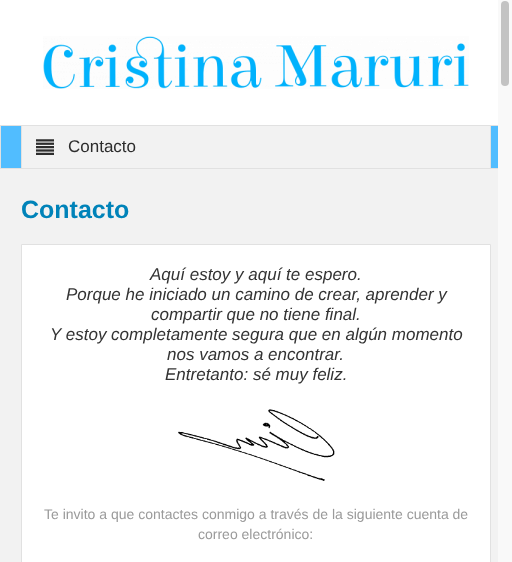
(async () => {
const canvas = document.querySelector("canvas")
canvas.width = 512
canvas.height = 562
const c = canvas.getContext("2d")
c.miterLimit = 4
c.fontKerning = "normal"
function T(s,x,y){c.fillText(s,x,y)}
function R(x,y,w,h){c.fillRect(x,y,w,h)}
function Q(x,y,w,h,r){c.beginPath();c.roundRect(x,y,w,h,r);c.fill()}
async function I(src,x,y,w,h){const img=new Image();img.src=src;await img.decode();c.drawImage(img,x,y,w,h)}
c.fillStyle="#f2f2f2"
R(0,0,512,562)
c.fillStyle="#fff"
R(0,0,498,125)
await I("1.png",43,36,426,53)
c.fillStyle="#51bdff"
R(1,126,497,42)
c.strokeStyle="#e1e1e1"
c.strokeRect(.5,125.5,511,43)
c.fillStyle="#f2f2f2"
R(22,126,468,42)
c.fillStyle="#e1e1e1"
R(490,126,1,42)
R(21,126,1,42)
await I("2.png",36,139,18,16)
c.font="17px Liberation Sans"
c.fillStyle="#2d2d2d"
T("Contacto",68,152)
c.font="bold 25px Liberation Sans"
c.fillStyle="#0083b9"
T("Contacto",21,218)
c.fillStyle="#fff"
c.beginPath()
c.rect(21.5,244.5,469,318)
c.fill()
c.stroke()
c.font="italic 17px Liberation Sans"
c.fillStyle="#333"
T("Aquí estoy y aquí te espero.",150,280)
T("Porque he iniciado un camino de crear, aprender y",66,300)
T("compartir que no tiene final.",151,320)
T("Y estoy completamente segura que en algún momento",50,340)
T("nos vamos a encontrar.",167,360)
T("Entretanto: sé muy feliz.",165,380)
await I("3.png",178,409,157,72)
c.font="14px Liberation Sans"
c.fillStyle="#9a9a9a"
T("Te invito a que contactes conmigo a través de la siguiente cuenta de",44,519)
T("correo electrónico:",198,539)
c.fillStyle="#f9f9f9"
R(498,0,14,562)
c.fillStyle="#c3c3c3"
Q(501,1,8,85,4)
})()
